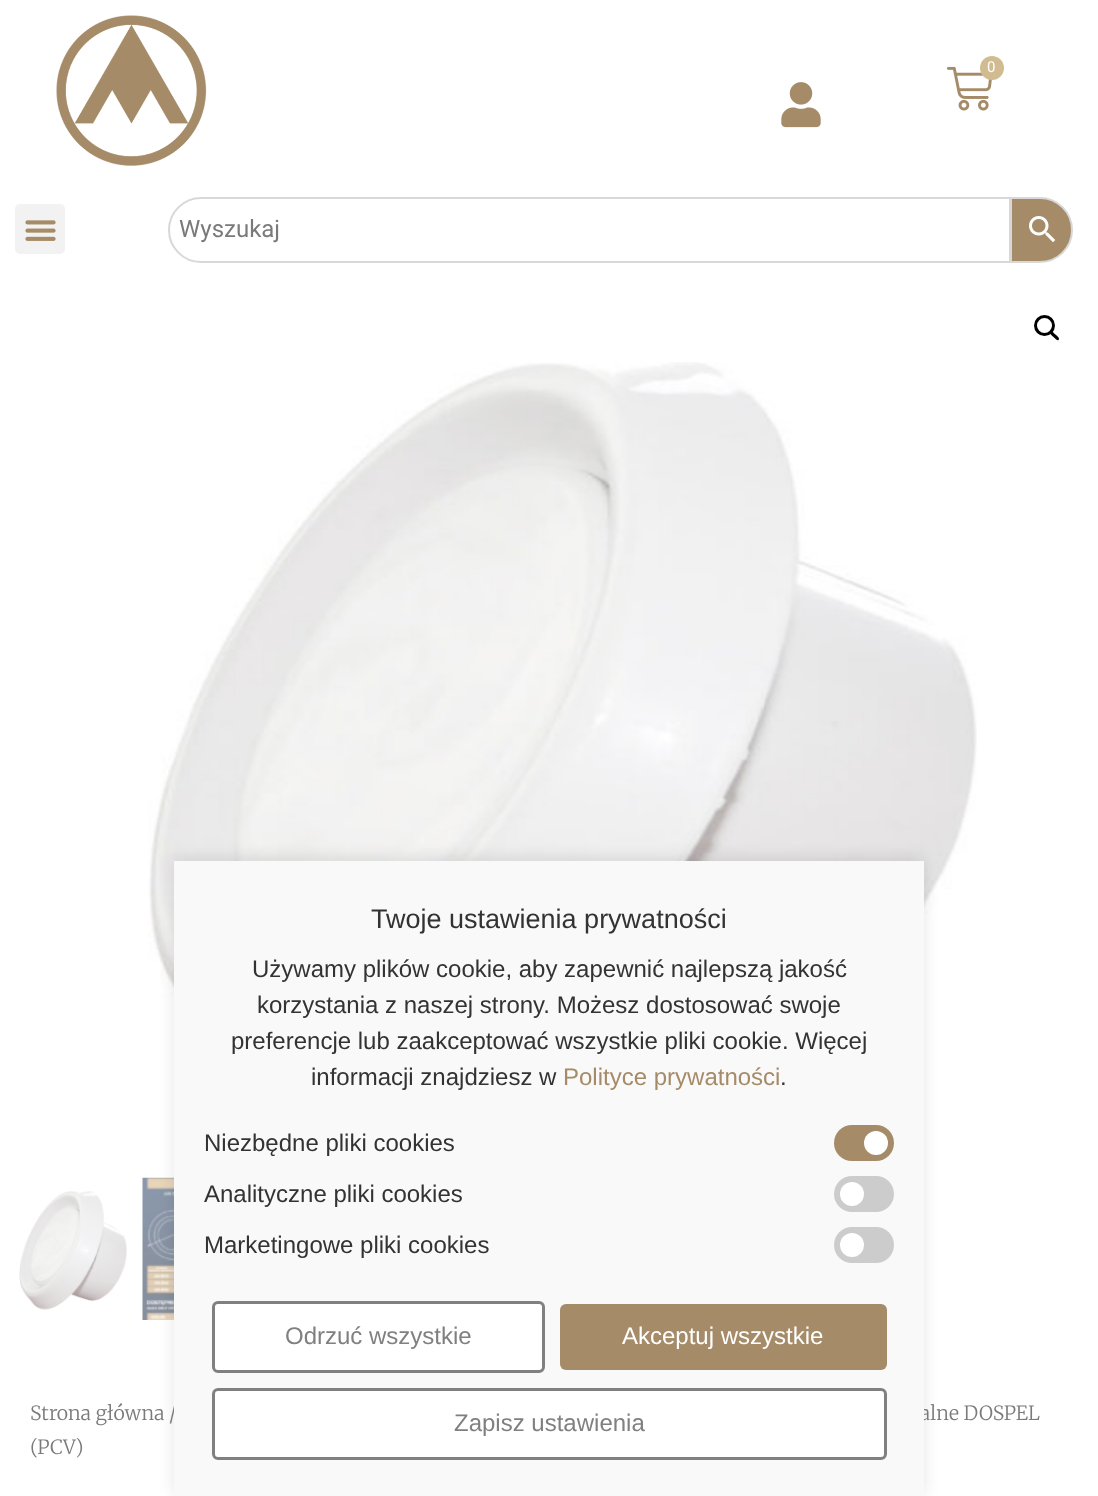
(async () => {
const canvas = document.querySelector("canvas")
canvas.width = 1098
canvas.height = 1496
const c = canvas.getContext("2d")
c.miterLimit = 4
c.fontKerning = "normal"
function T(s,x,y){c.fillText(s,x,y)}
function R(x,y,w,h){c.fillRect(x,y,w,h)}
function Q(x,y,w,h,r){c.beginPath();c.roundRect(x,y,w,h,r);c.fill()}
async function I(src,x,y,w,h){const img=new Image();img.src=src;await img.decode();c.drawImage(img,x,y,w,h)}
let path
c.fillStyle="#fff"
R(0,0,1098,1496)
await I("1.png",56,15,151,151)
await I("2.png",947,66,45,45)
c.fillStyle="#d1bc92"
c.beginPath()
c.arc(992,68,12,0,7)
c.fill()
c.font="15px Roboto"
c.fillStyle="#fff"
T("0",987,72)
await I("3.png",781,82,40,46)
c.fillStyle="#f2f2f2"
Q(15,204,50,50,5)
await I("4.png",25,220,31,21)
c.fillStyle="#a58b68"
c.beginPath()
c.roundRect(1011,198,61,64,[0,32,32,0])
c.fill()
c.strokeStyle="#d8d8d8"
c.lineWidth=2
c.stroke()
c.fillStyle="#fff"
c.beginPath()
c.roundRect(169,198,841,64,[32,0,0,32])
c.fill()
c.stroke()
c.font="24px Roboto"
c.fillStyle="#7a7a7a"
T("Wyszukaj",179,237)
await I("5.png",1029,216,27,27)
await I("6.png",148,362,829,751)
await I("8.png",142,1177,32,143)
c.fillStyle="#0000001a"
c.filter="blur(7.5px)"
c.beginPath()
c.rect(174,858,750,636)
c.fill()
c.filter="none"
c.font="300 19.5px Merriweather"
c.fillStyle="#7a7a7a"
T("Strona główna /",30,1420)
T("alne DOSPEL",920,1420)
c.fillStyle="#f9f9f9"
R(174,861,750,635)
c.font="27px Liberation Sans"
c.fillStyle="#333"
T("Twoje ustawienia prywatności",371,928)
c.font="24px Liberation Sans"
T("Używamy plików cookie, aby zapewnić najlepszą jakość",252,977)
T("korzystania z naszej strony. Możesz dostosować swoje",257,1013)
T("preferencje lub zaakceptować wszystkie pliki cookie. Więcej",231,1049)
T("informacji znajdziesz w",311,1085)
c.fillStyle="#a58b68"
T("Polityce prywatności",563,1085)
c.fillStyle="#333"
T(".",780,1085)
T("Niezbędne pliki cookies",204,1151)
c.fillStyle="#a58b68"
Q(834,1125,60,36,18)
c.fillStyle="#fff"
c.beginPath()
c.arc(876,1143,12,0,7)
c.fill()
c.fillStyle="#333"
T("Analityczne pliki cookies",204,1202)
c.fillStyle="#ccc"
Q(834,1176,60,36,18)
c.fillStyle="#fff"
c.beginPath()
c.arc(852,1194,12,0,7)
c.fill()
c.fillStyle="#333"
T("Marketingowe pliki cookies",204,1253)
c.fillStyle="#ccc"
Q(834,1227,60,36,18)
c.fillStyle="#fff"
c.beginPath()
c.arc(852,1245,12,0,7)
c.fill()
c.beginPath()
c.roundRect(213.5,1302.5,330,69,4.5)
c.fill()
c.strokeStyle="#808080"
c.lineWidth=3
c.stroke()
c.fillStyle="#808080"
T("Odrzuć wszystkie",285,1344)
c.fillStyle="#a58b68"
Q(560,1304,327,66,6)
c.fillStyle="#fff"
T("Akceptuj wszystkie",622,1344)
c.beginPath()
c.roundRect(213.5,1389.5,672,69,4.5)
c.fill()
c.stroke()
c.fillStyle="#808080"
T("Zapisz ustawienia",454,1431)
c.beginPath()
c.arc(1044.5,325.5,9,0,7)
c.strokeStyle="#000"
c.stroke()
c.fillStyle="#000"
path = new Path2D("M1050.5 331.5c1.5-1.5 4 2.5 5 3c1 1 5 4 3 5.5c-1.5 1.5-4-2.5-5-3c-1-1-5-4-3-5.5z")
c.fill(path)
await I("7.png",19,1191,108,119)
c.font="300 19.5px Merriweather"
c.fillStyle="#7a7a7a"
T("(PCV)",30,1454)
})()
